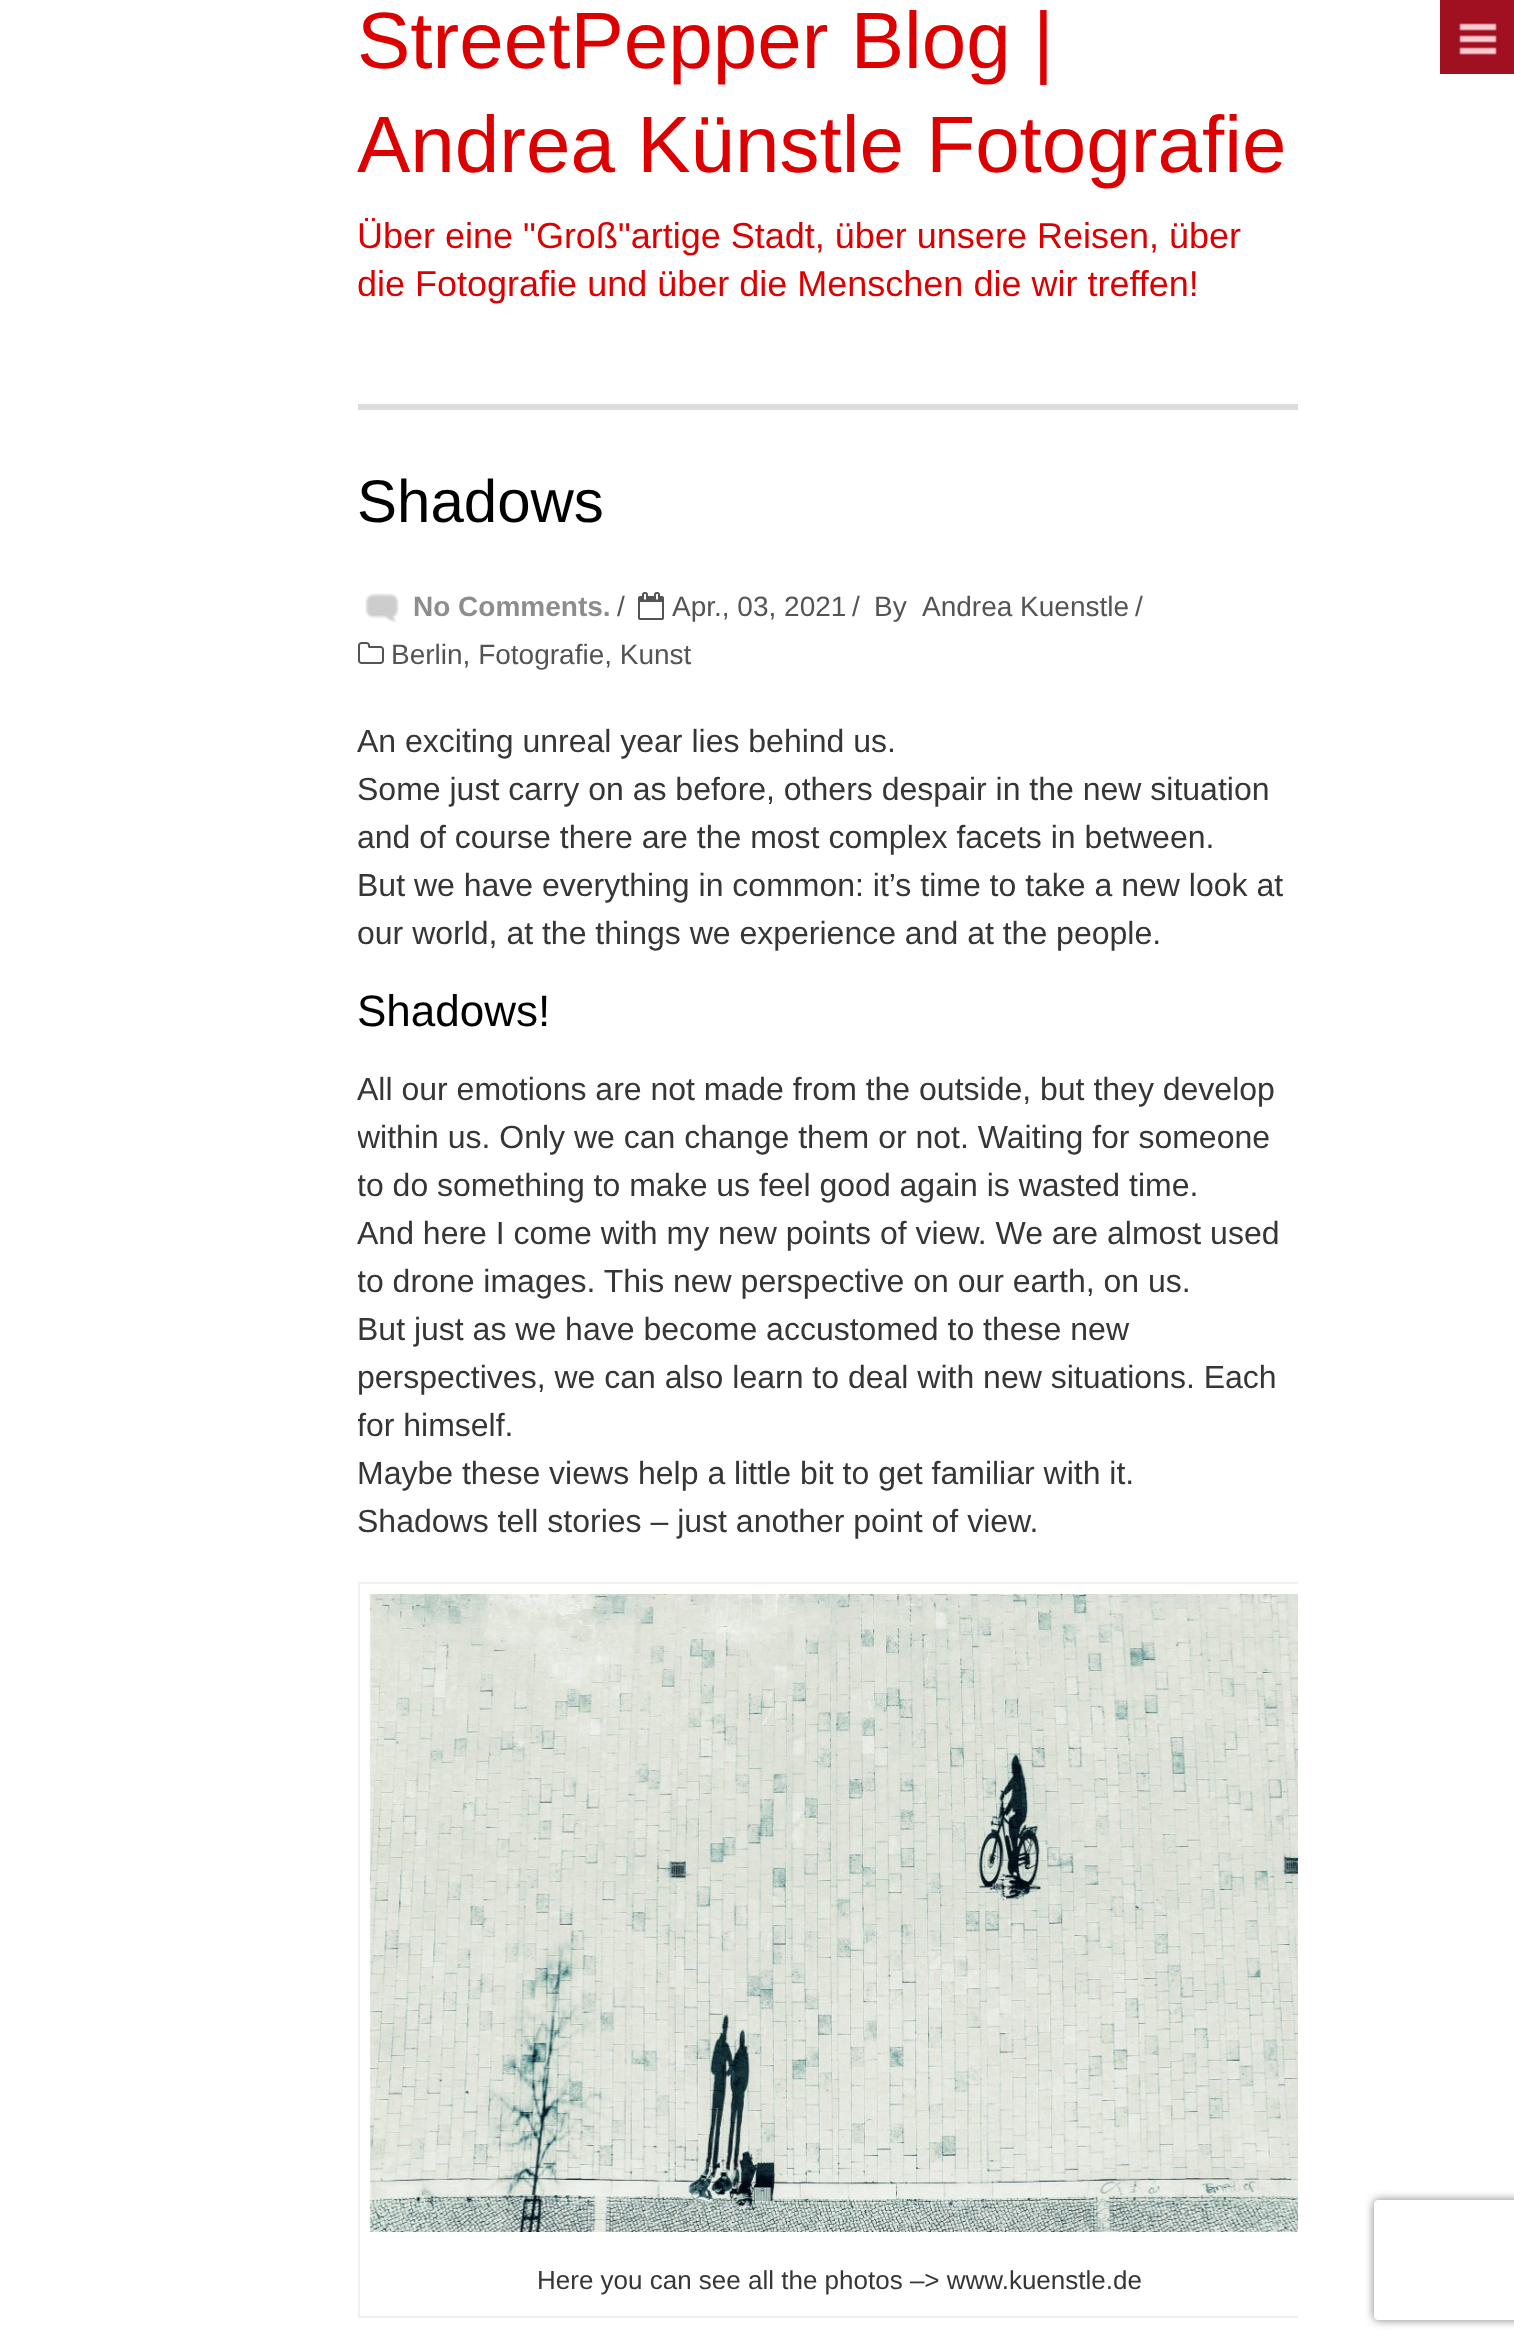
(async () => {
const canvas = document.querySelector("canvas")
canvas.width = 1514
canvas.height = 2348
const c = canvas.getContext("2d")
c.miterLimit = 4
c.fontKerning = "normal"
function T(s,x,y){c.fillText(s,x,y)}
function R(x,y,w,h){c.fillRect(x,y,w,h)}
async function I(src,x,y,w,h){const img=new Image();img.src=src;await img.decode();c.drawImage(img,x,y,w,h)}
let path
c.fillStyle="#fff"
R(0,0,1514,2348)
c.fillStyle="#ddd"
R(358,404,940,6)
c.font="80px Liberation Sans"
c.fillStyle="#d00"
T("StreetPepper Blog |",357,68)
T("Andrea Künstle Fotografie",357,172)
c.font="36px Liberation Sans"
T("Über eine \"Groß\"artige Stadt, über unsere Reisen, über",357,248)
T("die Fotografie und über die Menschen die wir treffen!",357,296)
await I("1.png",1440,0,74,74)
c.font="60px Liberation Sans"
c.fillStyle="#010101"
T("Shadows",357,522)
await I("2.png",365,593,34,30)
c.font="bold 28px Liberation Sans"
c.fillStyle="#8e8d8d"
T("No Comments.",413,616)
c.font="28px Liberation Sans"
c.fillStyle="#545454"
T("/",617,616)
await I("3.png",638,592,26,28)
T("Apr., 03, 2021",672,616)
T("/",852,616)
T("By",874,616)
T("Andrea Kuenstle",922,616)
T("/",1135,616)
await I("4.png",358,642,26,22)
T("Berlin, Fotografie, Kunst",391,664)
c.font="32px Liberation Sans"
c.fillStyle="#373636"
T("An exciting unreal year lies behind us.",357,752)
T("Some just carry on as before, others despair in the new situation",357,800)
T("and of course there are the most complex facets in between.",357,848)
T("But we have everything in common: it’s time to take a new look at",357,896)
T("our world, at the things we experience and at the people.",357,944)
c.font="44px Liberation Sans"
c.fillStyle="#010101"
T("Shadows!",357,1026)
c.font="32px Liberation Sans"
c.fillStyle="#373636"
T("All our emotions are not made from the outside, but they develop",357,1100)
c.save()
c.beginPath()
c.rect(358,470,940,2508)
c.clip()
T("within us. Only we can change them or not. Waiting for someone",357,1148)
T("to do something to make us feel good again is wasted time.",357,1196)
c.restore()
T("And here I come with my new points of view. We are almost used",357,1244)
c.save()
c.beginPath()
c.rect(358,470,940,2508)
c.clip()
T("to drone images. This new perspective on our earth, on us.",357,1292)
c.restore()
T("But just as we have become accustomed to these new",357,1340)
T("perspectives, we can also learn to deal with new situations. Each",357,1388)
c.save()
c.beginPath()
c.rect(358,470,940,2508)
c.clip()
T("for himself.",357,1436)
c.restore()
T("Maybe these views help a little bit to get familiar with it.",357,1484)
T("Shadows tell stories – just another point of view.",357,1532)
c.save()
c.beginPath()
c.rect(358,470,940,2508)
c.clip()
c.strokeStyle="#f0f0f0"
c.lineWidth=2
c.strokeRect(359,1583,962,734)
c.restore()
await I("5.png",369,1594,929,638)
c.font="26px Liberation Sans"
T("Here you can see all the photos –> www.kuenstle.de",537,2289)
c.save()
path = new Path2D("M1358 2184h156v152h-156zm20 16h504c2 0 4 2 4 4v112c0 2-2 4-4 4h-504c-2 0-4-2-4-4v-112c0-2 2-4 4-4z")
c.clip(path,"evenodd")
c.fillStyle="#808080"
c.filter="blur(5px)"
c.beginPath()
c.roundRect(1374,2200,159,120,4)
c.fill()
c.filter="none"
c.restore()
})()
